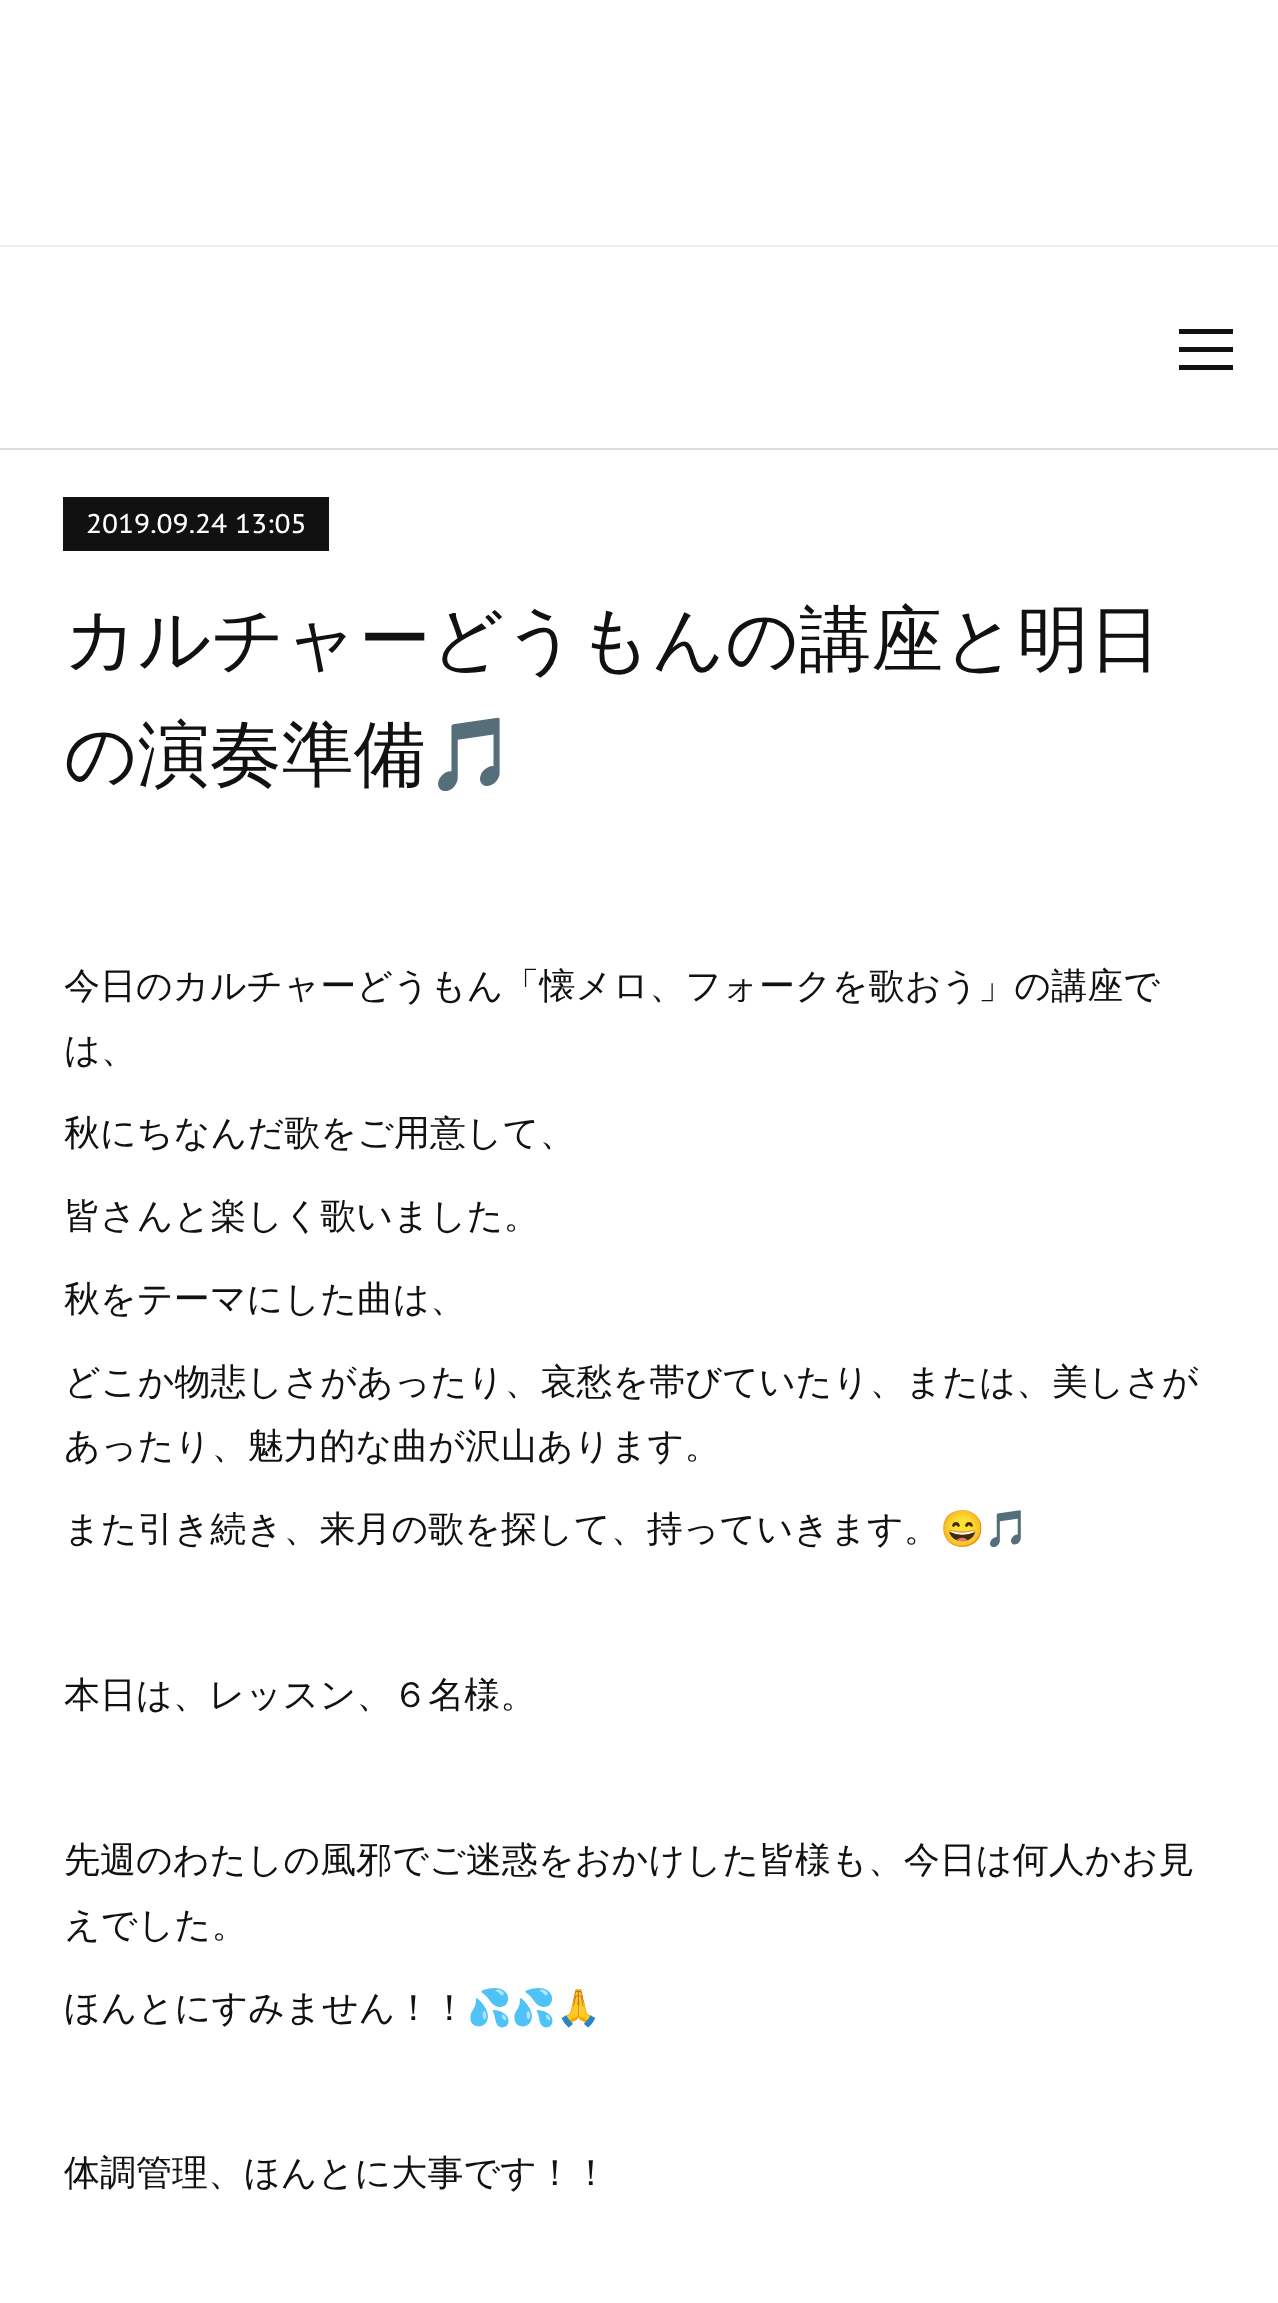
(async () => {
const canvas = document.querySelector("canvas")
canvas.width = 1278
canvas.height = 2303
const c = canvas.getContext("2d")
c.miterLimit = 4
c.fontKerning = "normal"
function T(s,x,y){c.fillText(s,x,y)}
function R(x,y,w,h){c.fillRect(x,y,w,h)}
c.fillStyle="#fff"
R(0,0,1278,2303)
c.fillStyle="#eee"
R(0,245,1278,2)
c.fillStyle="#ddd"
R(0,448,1278,2)
c.fillStyle="#111"
R(1179,329,54,5)
R(1179,347,54,5)
R(1179,365,54,5)
R(63,497,266,54)
c.font="27px PT Sans Caption"
c.fillStyle="#fff"
T("2019.09.24 13:05",86,533)
c.font="500 72px WenQuanYi Zen Hei"
c.fillStyle="#111"
T("カルチャーどうもんの講座と明日",64,664)
T("の演奏準備",64,779)
c.font="72px Noto Color Emoji"
T("🎵",426,779)
c.font="500 36px WenQuanYi Zen Hei"
T("今日のカルチャーどうもん「懐メロ、フォークを歌おう」の講座で",64,998)
T("は、",64,1062)
T("秋にちなんだ歌をご用意して、",64,1145)
T("皆さんと楽しく歌いました。",64,1228)
T("秋をテーマにした曲は、",64,1311)
T("どこか物悲しさがあったり、哀愁を帯びていたり、または、美しさが",64,1394)
T("あったり、魅力的な曲が沢山あります。",64,1458)
T("また引き続き、来月の歌を探して、持っていきます。",64,1541)
c.font="36px Noto Color Emoji"
T("😄🎵",940,1541)
c.font="500 36px WenQuanYi Zen Hei"
T("本日は、レッスン、６名様。",64,1707)
T("先週のわたしの風邪でご迷惑をおかけした皆様も、今日は何人かお見",64,1872)
T("えでした。",64,1937)
T("ほんとにすみません！！",64,2020)
c.font="36px Noto Color Emoji"
T("💦💦🙏",467,2020)
c.font="500 36px WenQuanYi Zen Hei"
T("体調管理、ほんとに大事です！！",64,2185)
})()
